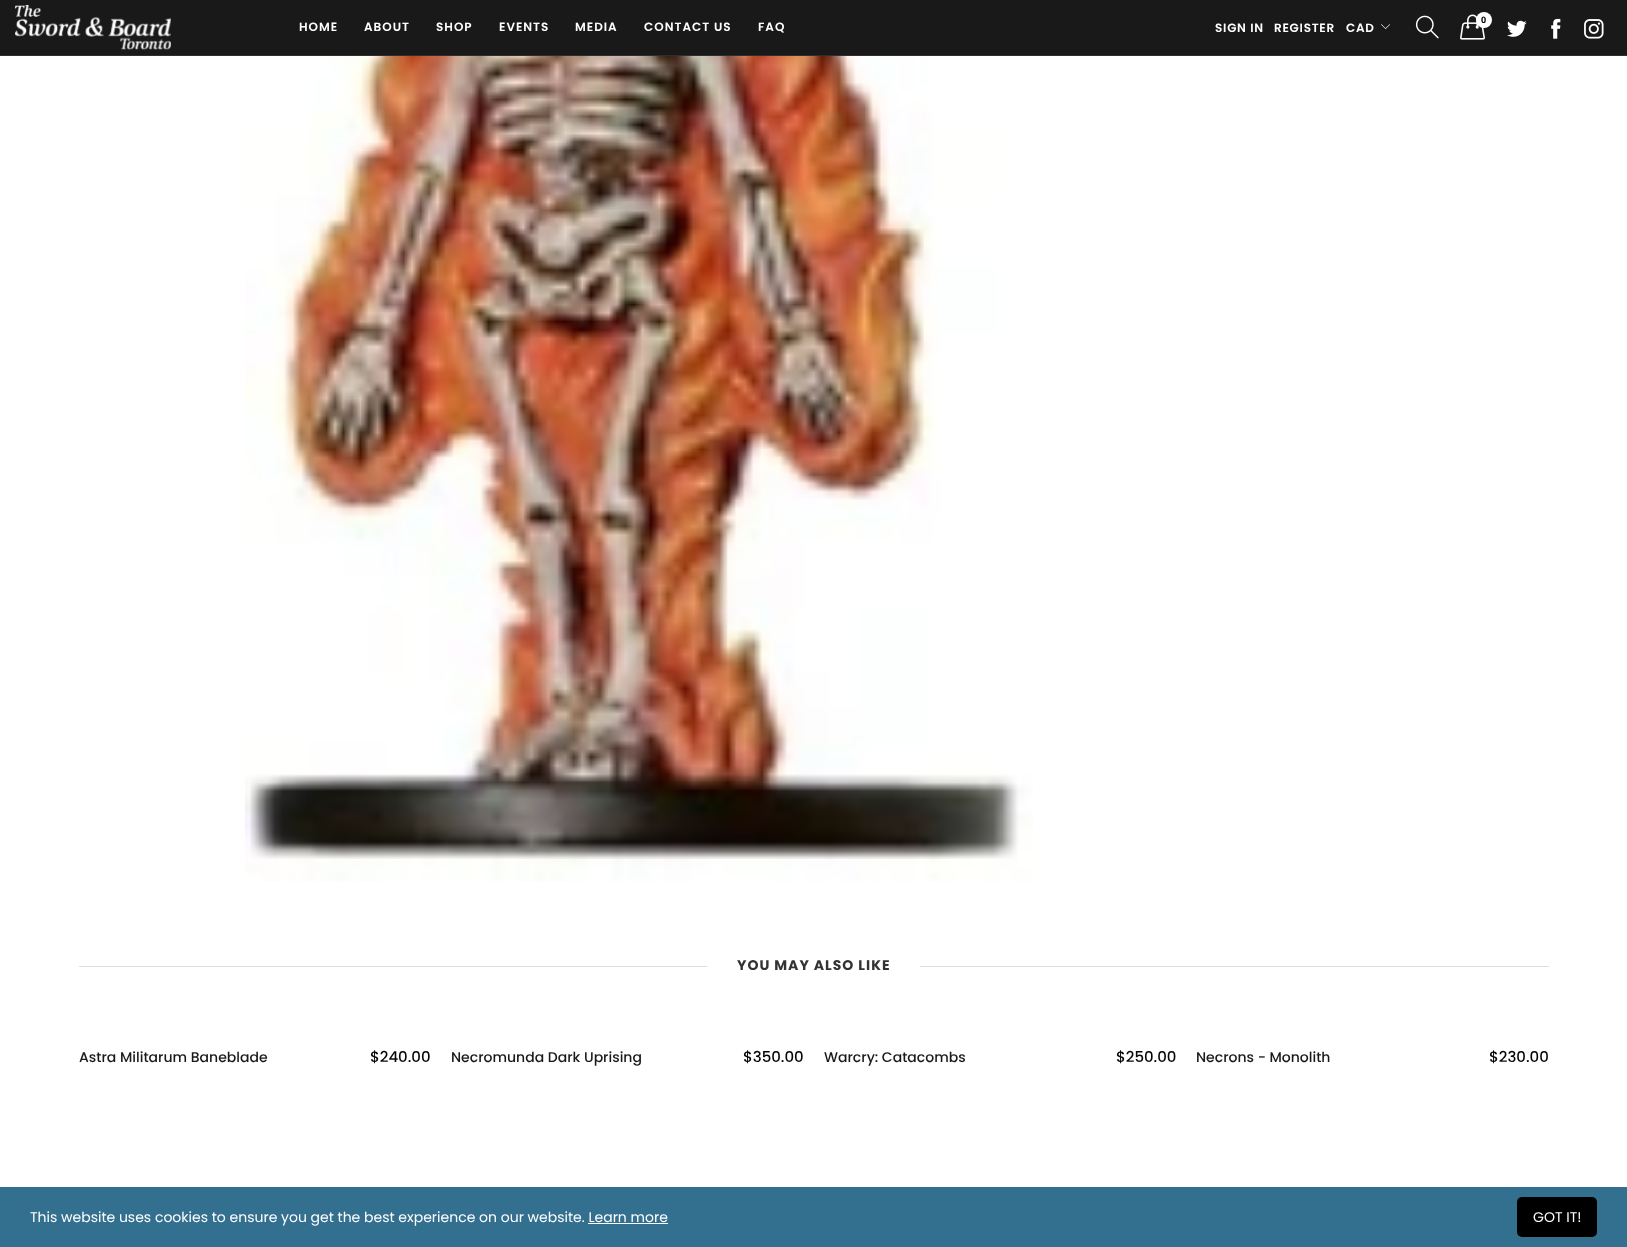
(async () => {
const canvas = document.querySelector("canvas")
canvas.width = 1627
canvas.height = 1247
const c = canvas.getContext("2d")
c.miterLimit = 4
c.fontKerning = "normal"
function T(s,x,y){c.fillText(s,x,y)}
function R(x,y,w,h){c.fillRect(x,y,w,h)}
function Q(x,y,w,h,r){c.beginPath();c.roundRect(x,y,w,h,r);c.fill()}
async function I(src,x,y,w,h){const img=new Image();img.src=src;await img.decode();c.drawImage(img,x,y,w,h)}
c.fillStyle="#fff"
R(0,0,1627,1247)
c.fillStyle="#191919"
R(0,0,1627,55)
c.fillStyle="#2f2f2f"
R(0,55,1627,1)
await I("1.png",15,5,156,45)
c.letterSpacing="1px"
c.font="600 12px Poppins"
c.fillStyle="#fff"
T("HOME",299,31)
T("ABOUT",364,31)
T("SHOP",436,31)
T("EVENTS",499,31)
T("MEDIA",575,31)
T("CONTACT US",644,31)
T("FAQ",758,31)
c.letterSpacing="0.75px"
T("SIGN IN",1215,32)
T("REGISTER",1274,32)
T("CAD",1346,32)
await I("2.png",1381,24,9,5)
await I("3.png",1415,15,24,24)
await I("4.png",1460,14,25,26)
c.beginPath()
c.arc(1484,20,8,0,7)
c.fill()
c.font="bold 9px Open Sans"
c.fillStyle="#000"
T("0",1481,23)
await I("5.png",1507,20,20,17)
await I("6.png",1551,18,10,21)
await I("7.png",1584,19,20,20)
await I("8.png",245,56,788,826)
c.fillStyle="#ddd"
R(79,966,1470,1)
c.fillStyle="#fff"
R(707,966,213,1)
c.letterSpacing="1px"
c.font="bold 14px Poppins"
c.fillStyle="#333"
T("YOU MAY ALSO LIKE",737,970)
c.letterSpacing="0px"
c.font="500 14px Poppins"
c.fillStyle="#191919"
T("Astra Militarum Baneblade",79,1062)
c.font="500 15px Poppins"
c.fillStyle="#060606"
T("$240.00",370,1062)
c.font="500 14px Poppins"
c.fillStyle="#191919"
T("Necromunda Dark Uprising",451,1062)
c.font="500 15px Poppins"
c.fillStyle="#060606"
T("$350.00",743,1062)
c.font="500 14px Poppins"
c.fillStyle="#191919"
T("Warcry: Catacombs",824,1062)
c.font="500 15px Poppins"
c.fillStyle="#060606"
T("$250.00",1116,1062)
c.font="500 14px Poppins"
c.fillStyle="#191919"
T("Necrons - Monolith",1196,1062)
c.font="500 15px Poppins"
c.fillStyle="#060606"
T("$230.00",1489,1062)
c.fillStyle="#336f8f"
R(0,1187,1627,60)
c.font="14px Poppins"
c.fillStyle="#fff"
T("This website uses cookies to ensure you get the best experience on our website. Learn more",30,1222)
R(588,1223,80,1)
c.fillStyle="#000"
Q(1517,1197,80,40,5)
c.fillStyle="#fff"
T("GOT IT!",1533,1222)
})()
